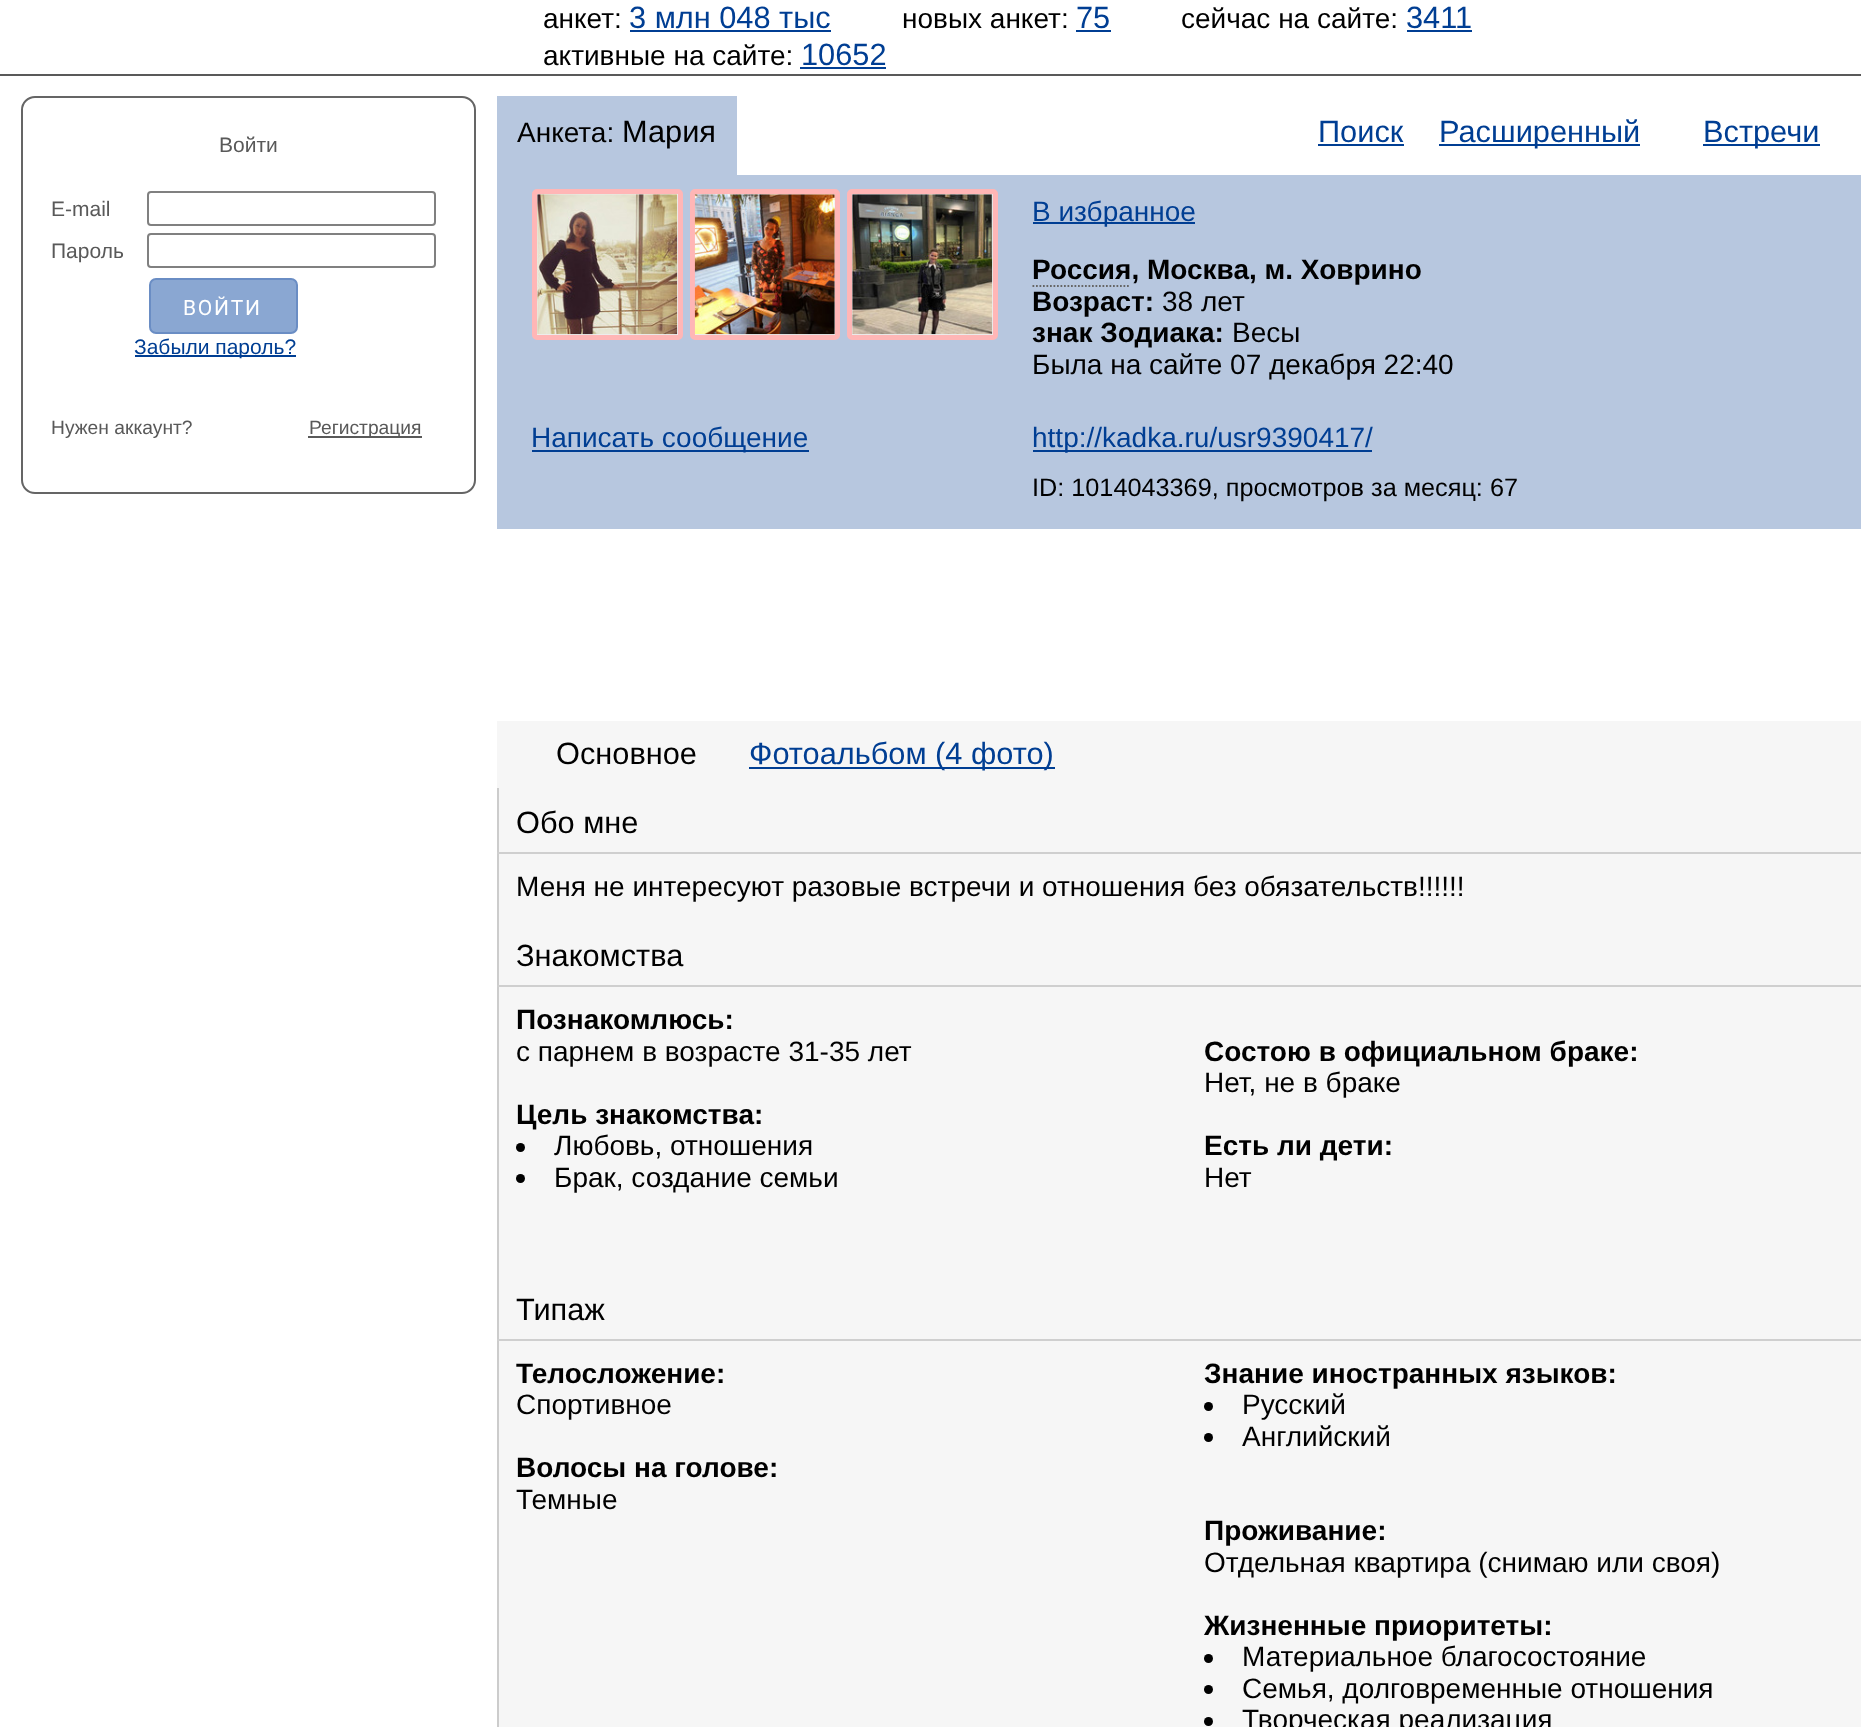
(async () => {
const canvas = document.querySelector("canvas")
canvas.width = 1861
canvas.height = 1727
const c = canvas.getContext("2d")
c.miterLimit = 4
c.fontKerning = "normal"
function T(s,x,y){c.fillText(s,x,y)}
function R(x,y,w,h){c.fillRect(x,y,w,h)}
async function I(src,x,y,w,h){const img=new Image();img.src=src;await img.decode();c.drawImage(img,x,y,w,h)}
let path
c.fillStyle="#fff"
R(0,0,1861,1727)
c.font="28px Liberation Sans"
c.fillStyle="#000"
T("анкет:",543,28)
c.font="30.75px Liberation Sans"
c.fillStyle="#003e93"
T("3 млн 048 тыс",629,28)
R(630,30,201,2)
c.font="28px Liberation Sans"
c.fillStyle="#000"
T("новых анкет:",902,28)
c.font="30.75px Liberation Sans"
c.fillStyle="#003e93"
T("75",1076,28)
R(1076,30,35,2)
c.font="28px Liberation Sans"
c.fillStyle="#000"
T("сейчас на сайте:",1181,28)
c.font="30.75px Liberation Sans"
c.fillStyle="#003e93"
T("3411",1406,28)
R(1407,30,65,2)
c.font="28px Liberation Sans"
c.fillStyle="#000"
T("активные на сайте:",543,65)
c.font="30.75px Liberation Sans"
c.fillStyle="#003e93"
T("10652",801,65)
R(800,67,86,2)
c.fillStyle="#595959"
R(0,74,1861,2)
c.beginPath()
c.roundRect(22,97,453,396,13)
c.strokeStyle="#656565"
c.lineWidth=2
c.stroke()
c.font="21px Liberation Sans"
T("Войти",219,152)
T("E-mail",51,216)
c.beginPath()
c.roundRect(148,192,287,33,3)
c.strokeStyle="#808080"
c.stroke()
T("Пароль",51,258)
c.beginPath()
c.roundRect(148,234,287,33,3)
c.stroke()
c.fillStyle="#8aa7d2"
c.beginPath()
c.roundRect(150,279,147,54,6)
c.fill()
c.strokeStyle="#6a8dc4"
c.stroke()
c.letterSpacing="1.75px"
c.font="21px Roboto"
c.fillStyle="#fff"
T("ВОЙТИ",183,315)
c.fillStyle="#003e93"
R(135,355,161,2)
c.letterSpacing="0px"
c.font="21px Liberation Sans"
T("Забыли пароль?",134,354)
c.font="19.25px Liberation Sans"
c.fillStyle="#595959"
T("Нужен аккаунт?",51,434)
R(308,436,114,2)
T("Регистрация",309,434)
c.fillStyle="#b7c7df"
R(497,96,240,79)
c.font="28px Liberation Sans"
c.fillStyle="#000"
T("Анкета:",517,142)
c.font="30.75px Liberation Sans"
T("Мария",622,142)
c.fillStyle="#003e93"
T("Поиск",1318,142)
R(1318,144,86,2)
R(1439,144,201,2)
T("Расширенный",1439,142)
R(1703,144,117,2)
T("Встречи",1703,142)
c.fillStyle="#b7c7df"
R(497,175,1364,354)
c.fillStyle="#ededed"
c.beginPath()
c.roundRect(534.5,191.5,146,146,2.5)
c.fill()
c.strokeStyle="#ffb6b6"
c.lineWidth=5
c.stroke()
await I("1.png",537,194,141,141)
c.beginPath()
c.roundRect(692.5,191.5,145,146,2.5)
c.fill()
c.stroke()
await I("2.png",694,194,141,141)
c.beginPath()
c.roundRect(849.5,191.5,146,146,2.5)
c.fill()
c.stroke()
await I("3.png",852,194,141,141)
c.fillStyle="#003e93"
R(1033,222,162,2)
c.font="28px Liberation Sans"
T("В избранное",1032,221)
c.font="bold 28px Liberation Sans"
c.fillStyle="#000"
T("Россия, Москва, м. Ховрино",1032,279)
path = new Path2D("M1032.5 286h98")
c.strokeStyle="#666"
c.lineWidth=1.8
c.setLineDash([1.75,1.75])
c.stroke(path)
T("Возраст:",1032,311)
c.font="28px Liberation Sans"
T("38 лет",1162,311)
c.font="bold 28px Liberation Sans"
T("знак Зодиака:",1032,342)
c.font="28px Liberation Sans"
T("Весы",1232,342)
T("Была на сайте 07 декабря 22:40",1032,374)
c.fillStyle="#003e93"
R(532,450,277,2)
T("Написать сообщение",531,447)
R(1033,450,339,2)
T("http://kadka.ru/usr9390417/",1032,447)
c.font="25.25px Liberation Sans"
c.fillStyle="#000"
T("ID: 1014043369, просмотров за месяц: 67",1032,496)
c.fillStyle="#f6f6f6"
R(497,721,1364,67)
c.font="30.75px Liberation Sans"
c.fillStyle="#000"
T("Основное",556,764)
c.fillStyle="#003e93"
R(749,767,306,2)
T("Фотоальбом (4 фото)",749,764)
c.fillStyle="#ccc"
R(497,788,2,939)
c.fillStyle="#f6f6f6"
R(499,788,1362,939)
c.fillStyle="#cfcfcf"
R(497,852,1364,2)
c.fillStyle="#000"
T("Обо мне",516,833)
c.font="28px Liberation Sans"
T("Меня не интересуют разовые встречи и отношения без обязательств!!!!!!",516,896)
c.fillStyle="#cfcfcf"
R(497,985,1364,2)
c.font="30.75px Liberation Sans"
c.fillStyle="#000"
T("Знакомства",516,966)
c.font="bold 28px Liberation Sans"
T("Познакомлюсь:",516,1029)
c.font="28px Liberation Sans"
T("с парнем в возрасте 31-35 лет",516,1061)
c.font="bold 28px Liberation Sans"
T("Цель знакомства:",516,1124)
c.beginPath()
c.arc(520.5,1147.5,4.5,0,7)
c.fill()
c.font="28px Liberation Sans"
T("Любовь, отношения",554,1155)
c.beginPath()
c.arc(520.5,1178.5,4.5,0,7)
c.fill()
T("Брак, создание семьи",554,1187)
c.font="bold 28px Liberation Sans"
T("Состою в официальном браке:",1204,1061)
c.font="28px Liberation Sans"
T("Нет, не в браке",1204,1092)
c.font="bold 28px Liberation Sans"
T("Есть ли дети:",1204,1155)
c.font="28px Liberation Sans"
T("Нет",1204,1187)
c.fillStyle="#cfcfcf"
R(497,1339,1364,2)
c.font="30.75px Liberation Sans"
c.fillStyle="#000"
T("Типаж",516,1320)
c.font="bold 28px Liberation Sans"
T("Телосложение:",516,1383)
c.font="28px Liberation Sans"
T("Спортивное",516,1414)
c.font="bold 28px Liberation Sans"
T("Волосы на голове:",516,1477)
c.font="28px Liberation Sans"
T("Темные",516,1509)
c.font="bold 28px Liberation Sans"
T("Знание иностранных языков:",1204,1383)
c.beginPath()
c.arc(1208.5,1406.5,4.5,0,7)
c.fill()
c.font="28px Liberation Sans"
T("Русский",1242,1414)
c.beginPath()
c.arc(1208.5,1437.5,4.5,0,7)
c.fill()
T("Английский",1242,1446)
c.font="bold 28px Liberation Sans"
T("Проживание:",1204,1540)
c.font="28px Liberation Sans"
T("Отдельная квартира (снимаю или своя)",1204,1572)
c.font="bold 28px Liberation Sans"
T("Жизненные приоритеты:",1204,1635)
c.beginPath()
c.arc(1208.5,1658.5,4.5,0,7)
c.fill()
c.font="28px Liberation Sans"
T("Материальное благосостояние",1242,1666)
c.beginPath()
c.arc(1208.5,1689.5,4.5,0,7)
c.fill()
T("Семья, долговременные отношения",1242,1698)
c.beginPath()
c.arc(1208.5,1721.5,4.5,0,7)
c.fill()
T("Творческая реализация",1242,1729)
})()
